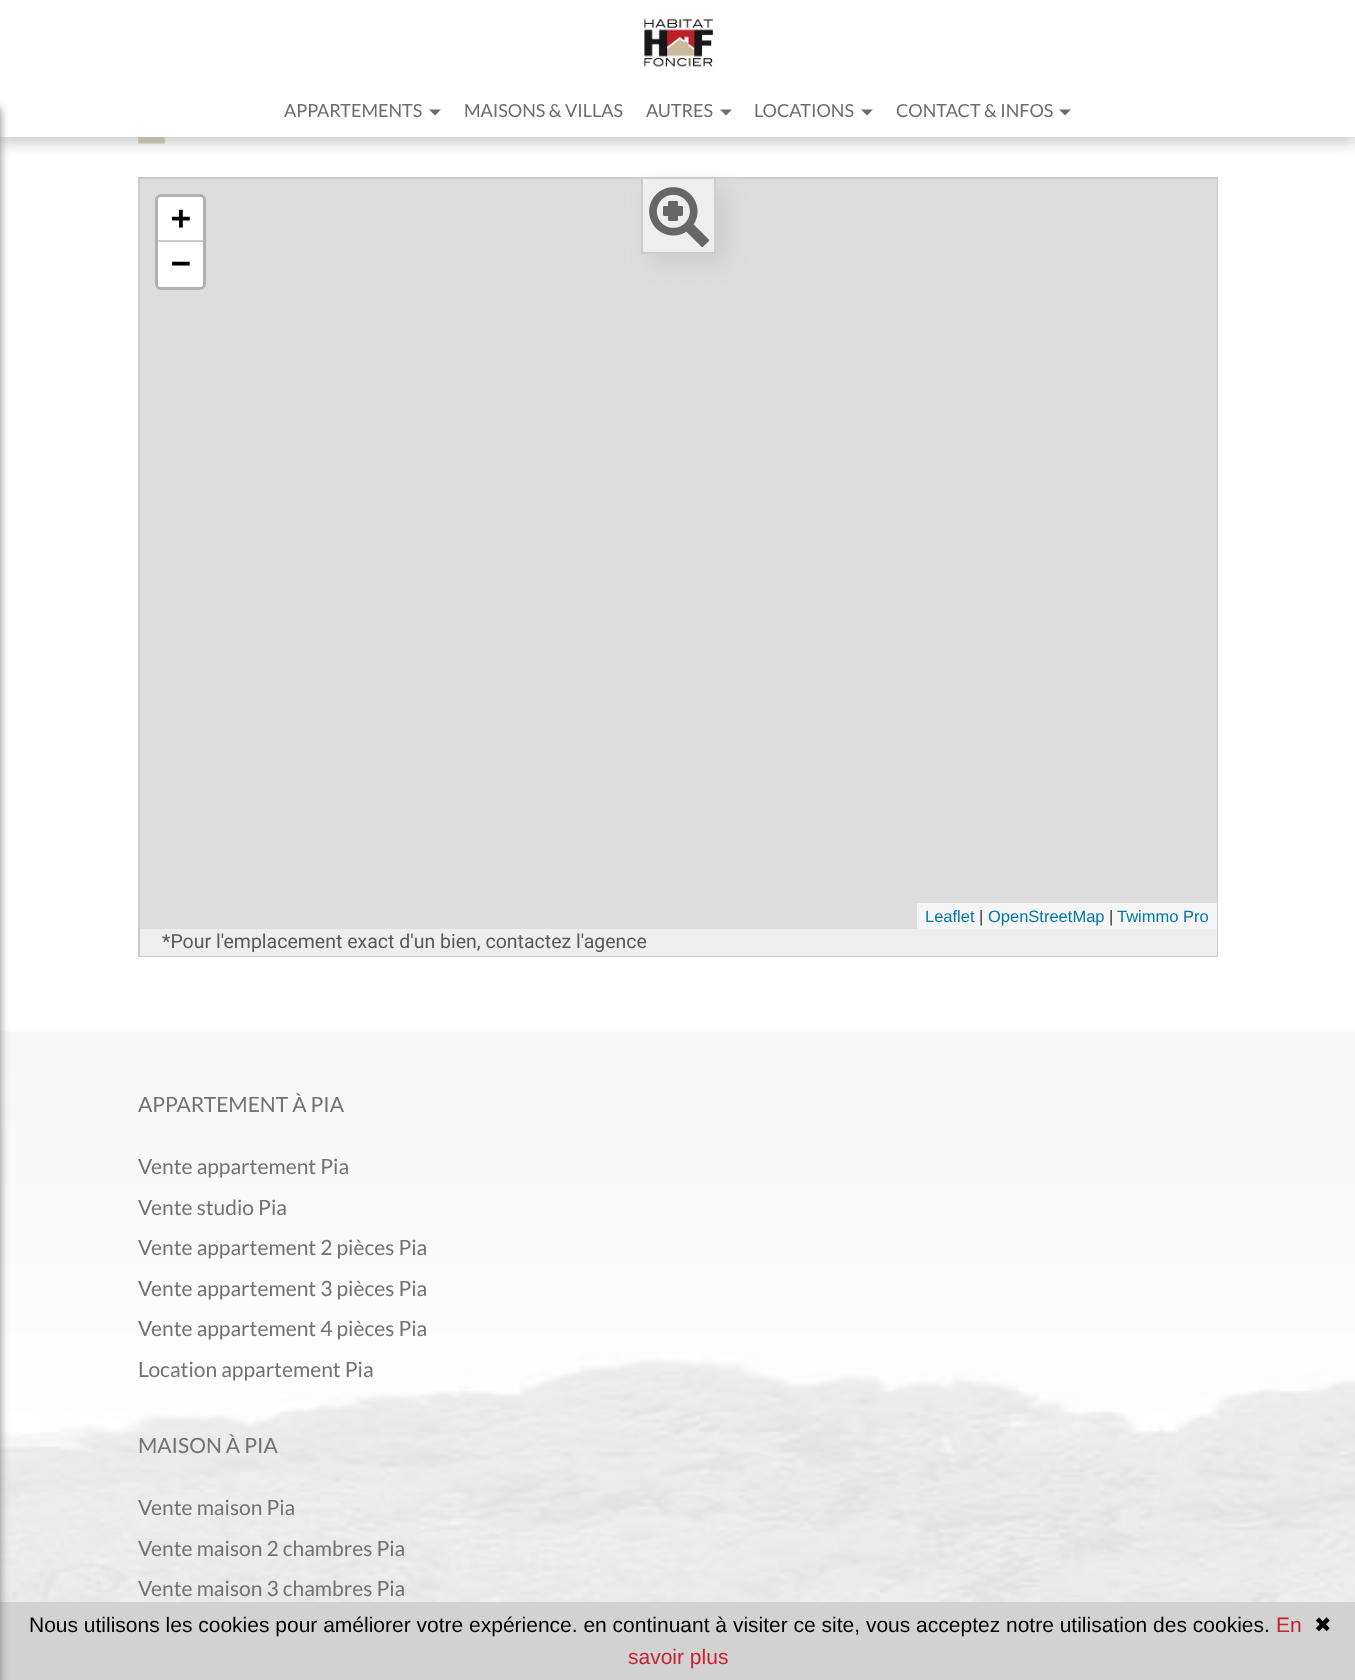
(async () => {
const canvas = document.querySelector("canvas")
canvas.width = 1355
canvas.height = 1680
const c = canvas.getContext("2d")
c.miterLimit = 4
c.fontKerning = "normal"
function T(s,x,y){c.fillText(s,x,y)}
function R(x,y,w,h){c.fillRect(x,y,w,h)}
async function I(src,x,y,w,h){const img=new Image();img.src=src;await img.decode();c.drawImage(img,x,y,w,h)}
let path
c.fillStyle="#fff"
R(0,0,1355,1680)
await I("2.png",138,137,27,7)
c.fillStyle="#b6b6b6bf"
c.filter="blur(7.5px)"
c.beginPath()
c.rect(0,90,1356,53)
c.fill()
c.filter="none"
c.fillStyle="#fff"
R(0,77,1355,60)
await I("4.png",0,1031,1355,571)
c.fillStyle="#d2d2d2"
R(0,1602,1355,78)
c.fillStyle="#7e7e7e"
c.filter="blur(4px)"
c.beginPath()
c.rect(-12,108,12,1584)
c.fill()
c.filter="none"
await I("1.png",644,18,69,49)
c.font="18px Lato"
c.fillStyle="#6b6d6e"
T("APPARTEMENTS",284,117)
path = new Path2D("M429 109.5h12l-6 6z")
c.fill(path)
T("MAISONS & VILLAS",464,117)
T("AUTRES",646,117)
path = new Path2D("M720 109.5h12l-6 6z")
c.fill(path)
T("LOCATIONS",754,117)
path = new Path2D("M861 109.5h12l-6 6z")
c.fill(path)
T("CONTACT & INFOS",896,117)
path = new Path2D("M1059 109.5h12l-6 6z")
c.fill(path)
c.strokeStyle="#ccc"
c.lineWidth=2
c.strokeRect(139,178,1078,778)
c.fillStyle="#ddd"
R(140,179,1077,750)
c.fillStyle="#ccc"
c.filter="blur(11px)"
c.beginPath()
c.rect(651,188,75,75)
c.fill()
c.filter="none"
c.fillStyle="#eee"
R(643,179,71,73)
c.fillStyle="#ccc"
R(714,179,2,75)
R(641,252,75,2)
R(641,179,2,75)
await I("3.png",649,187,60,60)
c.beginPath()
c.roundRect(156.5,195.5,48,93,4.5)
c.strokeStyle="#b1b1b1"
c.lineWidth=3
c.stroke()
c.fillStyle="#fff"
c.beginPath()
c.roundRect(158,197,45,45,[3,3,0,0])
c.fill()
c.fillStyle="#ccc"
R(158,240,45,2)
c.font="bold 33px DejaVu Sans Mono"
c.fillStyle="#000"
T("+",171,229)
c.fillStyle="#fff"
c.beginPath()
c.roundRect(158,242,45,45,[0,0,3,3])
c.fill()
c.fillStyle="#000"
T("−",171,274)
c.fillStyle="#f5f5f5"
R(917,903,300,26)
c.font="16.5px Liberation Sans"
c.fillStyle="#0078a8"
T("Leaflet",925,922)
c.fillStyle="#333"
T("|",979,922)
c.fillStyle="#0078a8"
T("OpenStreetMap",988,922)
c.fillStyle="#333"
T("|",1109,922)
c.fillStyle="#0078a8"
T("Twimmo Pro",1117,922)
c.fillStyle="#eee"
R(140,929,1077,27)
c.font="19.5px Roboto"
c.fillStyle="#585858"
T("*Pour l'emplacement exact d'un bien, contactez l'agence",162,948)
c.font="21px Lato"
c.fillStyle="#727272"
T("APPARTEMENT À PIA",138,1112)
T("Vente appartement Pia",138,1174)
T("Vente studio Pia",138,1215)
T("Vente appartement 2 pièces Pia",138,1255)
T("Vente appartement 3 pièces Pia",138,1296)
T("Vente appartement 4 pièces Pia",138,1336)
T("Location appartement Pia",138,1377)
T("MAISON À PIA",138,1453)
T("Vente maison Pia",138,1515)
T("Vente maison 2 chambres Pia",138,1556)
T("Vente maison 3 chambres Pia",138,1596)
c.font="21px Liberation Sans"
c.fillStyle="#000"
T("Nous utilisons les cookies pour améliorer votre expérience. en continuant à visiter ce site, vous acceptez notre utilisation des cookies.",29,1632)
c.fillStyle="#c5232f"
T("En",1276,1632)
c.font="21px DejaVu Sans"
c.fillStyle="#000"
T("✖",1314,1632)
c.font="21px Liberation Sans"
c.fillStyle="#c5232f"
T("savoir plus",628,1664)
})()
